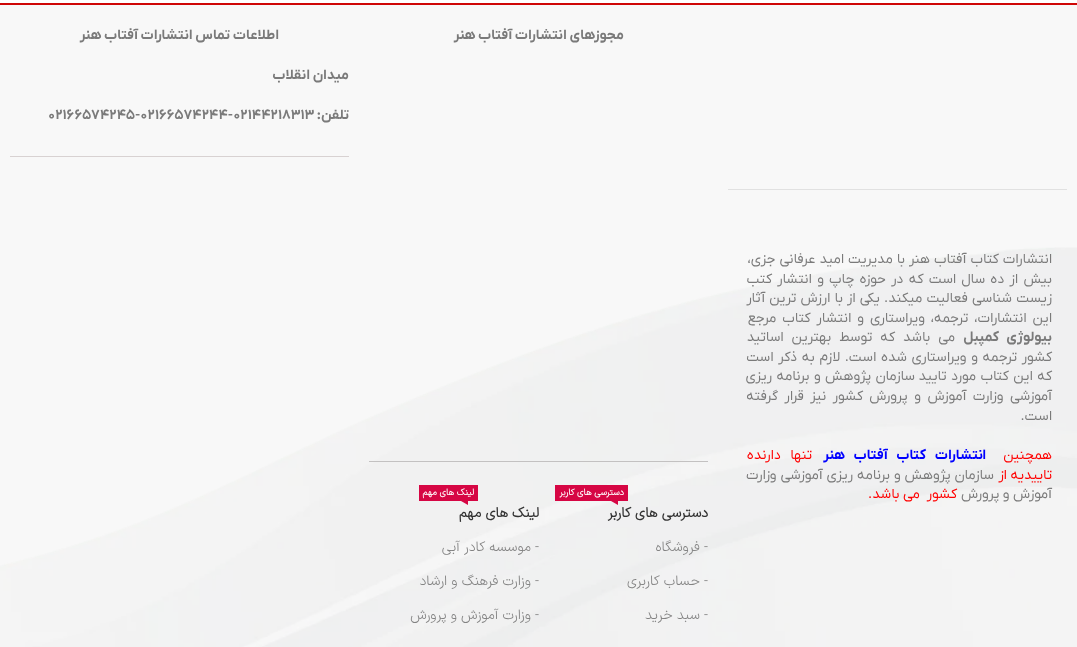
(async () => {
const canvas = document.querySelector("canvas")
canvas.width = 1077
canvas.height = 647
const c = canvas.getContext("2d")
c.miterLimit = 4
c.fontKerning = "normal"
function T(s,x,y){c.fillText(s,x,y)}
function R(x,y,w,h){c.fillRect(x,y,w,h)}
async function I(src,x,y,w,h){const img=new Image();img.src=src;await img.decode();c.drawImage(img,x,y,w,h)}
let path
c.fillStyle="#fff"
R(0,0,1077,647)
c.fillStyle="#cf0606"
R(0,3,1077,2)
c.fillStyle="#f8f8f8"
R(0,5,1077,642)
await I("1.png",0,247,1077,400)
c.fillStyle="#e1e1e1"
R(728,189,339,1)
c.wordSpacing="0.5px"
c.direction="rtl"
c.font="14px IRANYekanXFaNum"
c.fillStyle="#7a7a7a"
T("انتشارات کتاب آفتاب هنر با مدیریت امید عرفانی جزی،",1052,263)
c.wordSpacing="1.75px"
T("بیش از ده سال است که در حوزه چاپ و انتشار کتب",1052,283)
c.wordSpacing="0.75px"
T("زیست شناسی فعالیت میکند. یکی از با ارزش ترین آثار",1052,302)
c.wordSpacing="2.5px"
T("این انتشارات، ترجمه، ویراستاری و انتشار کتاب مرجع",1052,322)
c.wordSpacing="4.5px"
c.font="bold 14px IRANYekanXFaNum"
T("بیولوژی کمپبل",1052,341)
c.font="14px IRANYekanXFaNum"
T("می باشد که توسط بهترین اساتید",955,341)
c.wordSpacing="1.25px"
T("کشور ترجمه و ویراستاری شده است. لازم به ذکر است",1052,361)
c.wordSpacing="1px"
T("که این کتاب مورد تایید",1052,380)
T("سازمان پژوهش و برنامه ریزی",915,380)
c.wordSpacing="3px"
T("آموزشی وزارت آموزش و پرورش",1052,400)
T("کشور نیز قرار گرفته",863,400)
c.wordSpacing="0px"
T("است.",1052,420)
c.fillStyle="#f00"
T("همچنین",1052,459)
c.font="bold 14px IRANYekanXFaNum"
c.fillStyle="#00f"
T("ا",986,459)
c.wordSpacing="6px"
T("نتشارات کتاب آفتاب هنر",983,459)
c.font="14px IRANYekanXFaNum"
c.fillStyle="#f00"
T("تنها دارنده",812,459)
c.wordSpacing="0px"
T("تاییدیه از",1052,479)
c.wordSpacing="0.5px"
c.fillStyle="#7a7a7a"
T("سازمان پژوهش و برنامه ریزی آموزشی وزارت",994,479)
c.wordSpacing="0px"
T("آموزش و پرورش",1052,498)
c.fillStyle="#f00"
T("کشور  می باشد.",957,498)
c.font="bold 14px IRANYekanXFaNum"
c.fillStyle="#7a7a7a"
T("مجوزهای انتشارات آفتاب هنر",624,39)
c.fillStyle="#c3c1c1"
R(369,461,339,1)
c.fillStyle="#d60644"
R(555,485,73,16)
c.font="bold 9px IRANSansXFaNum"
c.fillStyle="#fff"
T("دسترسی های کاربر",624,495)
c.fillStyle="#d60644"
path = new Path2D("M611 501h7v4z")
c.fill(path)
c.font="bold 14px IRANSansXFaNum"
c.fillStyle="#333"
T("دسترسی های کاربر",708,517)
c.font="300 14px IRANSansXFaNum"
c.fillStyle="#838383"
T("- فروشگاه",708,551)
T("- حساب کاربری",708,585)
T("- سبد خرید",708,619)
c.fillStyle="#d60644"
R(419,485,59,16)
c.font="bold 9px IRANSansXFaNum"
c.fillStyle="#fff"
T("لینک های مهم",474,495)
c.fillStyle="#d60644"
path = new Path2D("M461 501h7v4z")
c.fill(path)
c.font="bold 14px IRANSansXFaNum"
c.fillStyle="#333"
T("لینک های مهم",539,517)
c.font="300 14px IRANSansXFaNum"
c.fillStyle="#838383"
T("- موسسه کادر آبی",539,551)
T("- وزارت فرهنگ و ارشاد",539,585)
T("- وزارت آموزش و پرورش",539,619)
c.font="bold 14px IRANYekanXFaNum"
c.fillStyle="#7a7a7a"
T("اطلاعات تماس انتشارات آفتاب هنر",279,39)
T("میدان انقلاب",349,79)
T("تلفن:",349,119)
c.direction="ltr"
T("02166574245-02166574244-02144218313",48,119)
c.fillStyle="#d8d2d2"
R(10,156,339,1)
})()
